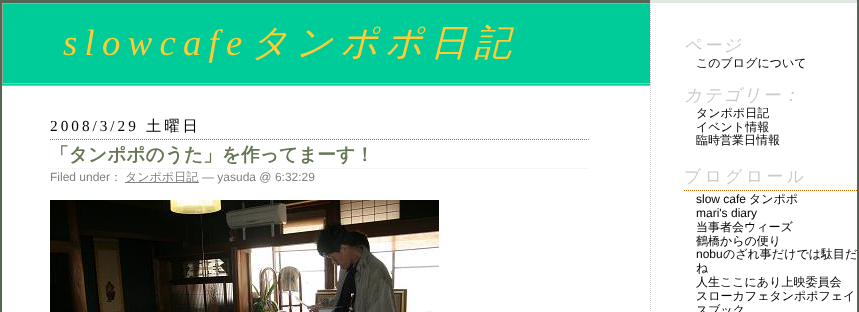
(async () => {
const canvas = document.querySelector("canvas")
canvas.width = 859
canvas.height = 312
const c = canvas.getContext("2d")
c.miterLimit = 4
c.fontKerning = "normal"
function T(s,x,y){c.fillText(s,x,y)}
function R(x,y,w,h){c.fillRect(x,y,w,h)}
async function I(src,x,y,w,h){const img=new Image();img.src=src;await img.decode();c.drawImage(img,x,y,w,h)}
let path
c.fillStyle="#fff"
R(0,0,859,312)
c.fillStyle="#565"
R(0,0,650,3)
R(857,0,2,312)
R(0,0,2,312)
c.fillStyle="#0c9"
R(2,4,648,81)
c.fillStyle="#9a9"
R(2,3,648,1)
c.fillStyle="#aba"
R(2,83,648,1)
R(2,85,648,1)
c.fillStyle="#9a9"
path = new Path2D("M2 86v-83l1 1v79z")
c.fill(path)
c.letterSpacing="7.25px"
c.font="italic 36.75px Liberation Serif"
c.fillStyle="#fc3"
T("slowcafe",63,55)
c.font="italic 500 36.75px WenQuanYi Zen Hei"
T("タンポポ日記",251,55)
c.fillStyle="#e0e6e0"
path = new Path2D("M650 0h207v3h-206z")
c.fill(path)
path = new Path2D("M650.5 0v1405")
c.strokeStyle="#ccc"
c.setLineDash([1,1])
c.stroke(path)
c.letterSpacing="1.75px"
c.font="italic 500 17.5px WenQuanYi Zen Hei"
c.fillStyle="#ccc"
T("ページ",684,51)
c.letterSpacing="0px"
c.font="500 12px WenQuanYi Zen Hei"
c.fillStyle="#000"
T("このブログについて",696,67)
c.letterSpacing="1.75px"
c.font="italic 500 17.5px WenQuanYi Zen Hei"
c.fillStyle="#ccc"
T("カテゴリー：",684,101)
c.letterSpacing="0px"
c.font="500 12px WenQuanYi Zen Hei"
c.fillStyle="#000"
T("タンポポ日記",696,117)
T("イベント情報",696,131)
T("臨時営業日情報",696,144)
path = new Path2D("M684 190.5h173")
c.strokeStyle="#c60"
c.stroke(path)
c.letterSpacing="3.5px"
c.font="500 16.75px WenQuanYi Zen Hei"
c.fillStyle="#ccc"
T("ブログロール",684,182)
c.letterSpacing="0px"
c.font="12px Liberation Sans"
c.fillStyle="#000"
T("slow cafe",696,203)
c.font="500 12px WenQuanYi Zen Hei"
T("タンポポ",749,203)
c.font="12px Liberation Sans"
T("mari's diary",696,217)
c.font="500 12px WenQuanYi Zen Hei"
T("当事者会ウィーズ",696,231)
T("鶴橋からの便り",696,245)
c.font="12px Liberation Sans"
T("nobu",696,258)
c.font="500 12px WenQuanYi Zen Hei"
T("のざれ事だけでは駄目だ",723,258)
T("ね",696,272)
T("人生ここにあり上映委員会",696,286)
T("スローカフェタンポポフェイ",696,300)
T("スブック",696,314)
path = new Path2D("M50 139.5h539")
c.stroke(path)
c.letterSpacing="3px"
c.font="15.25px Liberation Serif"
T("2008/3/29",50,131)
c.font="500 15.25px WenQuanYi Zen Hei"
T("土曜日",146,131)
path = new Path2D("M50 168.5h539")
c.strokeStyle="#eee"
c.stroke(path)
c.letterSpacing="0px"
c.font="bold 18.75px WenQuanYi Zen Hei"
c.fillStyle="#675"
T("「タンポポのうた」を作ってまーす！",50,161)
c.font="12px Liberation Sans"
c.fillStyle="#808080"
T("Filed under",50,181)
c.font="500 12px WenQuanYi Zen Hei"
T("：",110,181)
R(125,182,74,1)
T("タンポポ日記",125,181)
c.font="12px Liberation Sans"
T("— yasuda @ 6:32:29",202,181)
await I("1.png",50,200,389,112)
})()
